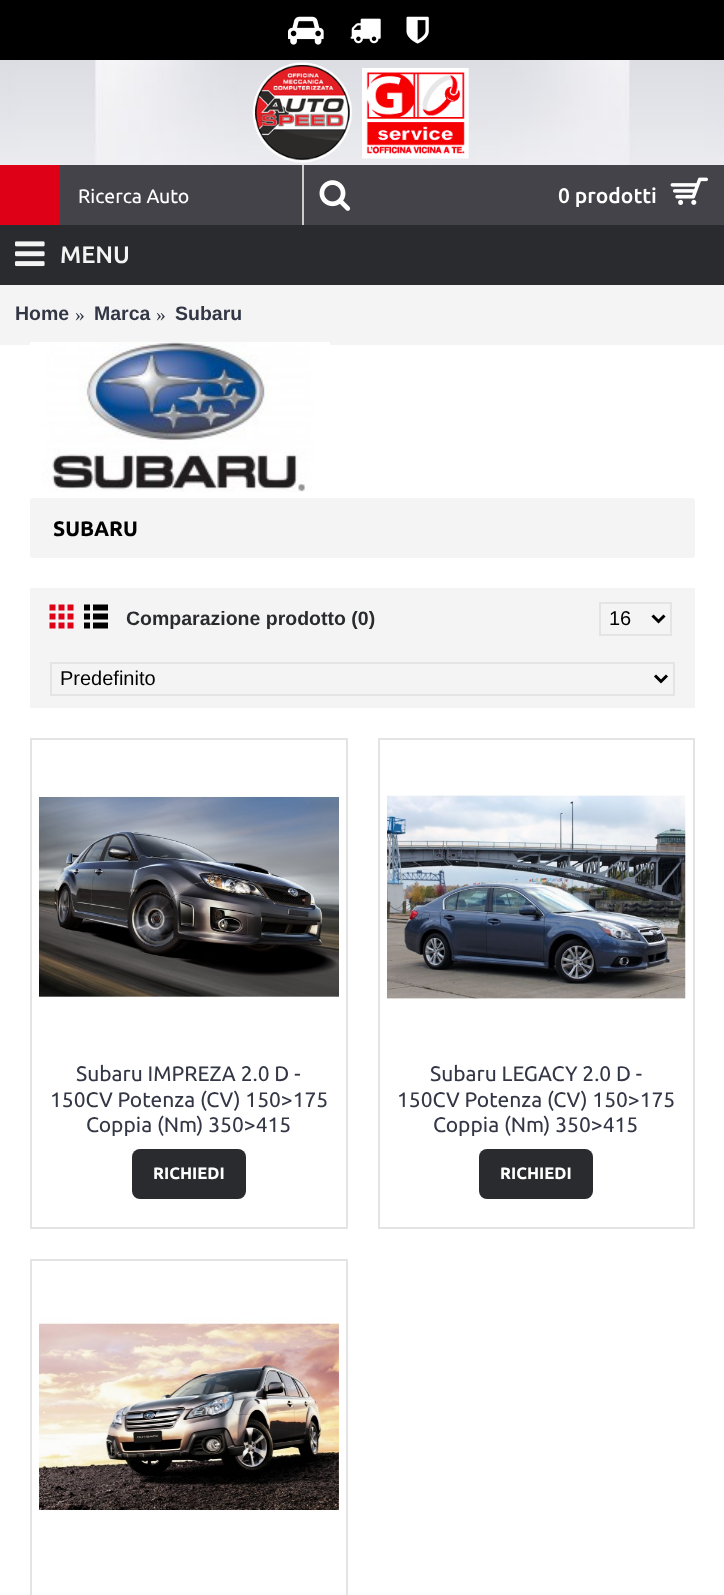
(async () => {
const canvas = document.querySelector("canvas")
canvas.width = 724
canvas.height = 1595
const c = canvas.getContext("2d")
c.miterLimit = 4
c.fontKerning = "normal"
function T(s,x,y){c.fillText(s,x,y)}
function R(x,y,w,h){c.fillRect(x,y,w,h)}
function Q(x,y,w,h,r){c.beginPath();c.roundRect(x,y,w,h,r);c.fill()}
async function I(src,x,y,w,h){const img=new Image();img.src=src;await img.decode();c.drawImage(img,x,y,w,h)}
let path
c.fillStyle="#fff"
R(0,0,724,1595)
await I("1.png",0,60,724,105)
c.fillStyle="#000"
R(0,0,724,60)
await I("2.png",288,16,36,29)
await I("3.png",350,18,31,26)
await I("4.png",406,16,23,28)
await I("5.png",252,62,217,101)
c.fillStyle="#dd0017"
R(0,165,60,60)
c.fillStyle="#444349"
R(60,165,664,60)
c.font="19.5px Ubuntu"
c.fillStyle="#fff"
T("Ricerca Auto",78,203)
c.fillStyle="#ccc"
R(302,165,2,60)
await I("6.png",319,180,32,31)
c.font="500 21px Ubuntu"
c.fillStyle="#fff"
T("0 prodotti",558,203)
await I("7.png",670,177,38,28)
c.fillStyle="#2a2b2e"
R(0,225,724,60)
await I("8.png",15,241,30,26)
c.font="500 24px Ubuntu"
c.fillStyle="#f4f4f4"
T("MENU",60,263)
R(0,285,724,60)
c.font="bold 19.5px Liberation Sans"
c.fillStyle="#333745"
T("Home",15,320)
c.font="19.5px Liberation Serif"
T("»",75,321)
c.font="bold 19.5px Liberation Sans"
T("Marca",94,320)
c.font="19.5px Liberation Serif"
T("»",156,321)
c.font="bold 19.5px Liberation Sans"
T("Subaru",175,320)
await I("9.png",30,342,300,150)
c.fillStyle="#f4f4f4"
Q(30,498,665,60,3)
c.font="bold 21px Ubuntu"
c.fillStyle="#000"
T("SUBARU",53,536)
c.fillStyle="#f4f4f4"
R(30,588,665,120)
await I("10.png",49,604,25,25)
await I("11.png",84,604,24,25)
c.font="bold 19.5px Liberation Sans"
c.fillStyle="#2a2b2e"
T("Comparazione prodotto (0)",126,625)
c.strokeStyle="#e4e4e4"
c.lineWidth=2
c.strokeRect(600,603,71,32)
path = new Path2D("M652.5 615.5l6 6l6-6")
c.strokeStyle="#000"
c.lineWidth=3
c.stroke(path)
c.font="20px Liberation Sans"
c.fillStyle="#000"
T("16",609,625)
c.strokeStyle="#e4e4e4"
c.lineWidth=2
c.strokeRect(51,663,623,32)
path = new Path2D("M655 675.5l6 6l6-6")
c.strokeStyle="#000"
c.lineWidth=3
c.stroke(path)
T("Predefinito",60,685)
c.strokeStyle="#e4e4e4"
c.lineWidth=2
c.strokeRect(31,739,316,489)
await I("12.png",39,795,300,202)
c.font="21px Ubuntu"
c.fillStyle="#333745"
T("Subaru IMPREZA 2.0 D -",76,1081)
T("150CV Potenza (CV) 150>175",50,1107)
T("Coppia (Nm) 350>415",86,1132)
c.fillStyle="#2a2b2e"
Q(132,1149,114,50,8)
c.font="bold 16.5px Ubuntu"
c.fillStyle="#fff"
T("RICHIEDI",153,1179)
c.strokeRect(379,739,315,489)
await I("13.png",387,795,299,206)
c.font="21px Ubuntu"
c.fillStyle="#333745"
T("Subaru LEGACY 2.0 D -",430,1081)
T("150CV Potenza (CV) 150>175",397,1107)
T("Coppia (Nm) 350>415",433,1132)
c.fillStyle="#2a2b2e"
Q(479,1149,114,50,8)
c.font="bold 16.5px Ubuntu"
c.fillStyle="#fff"
T("RICHIEDI",500,1179)
c.strokeRect(31,1260,316,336)
await I("14.png",39,1318,300,193)
})()
